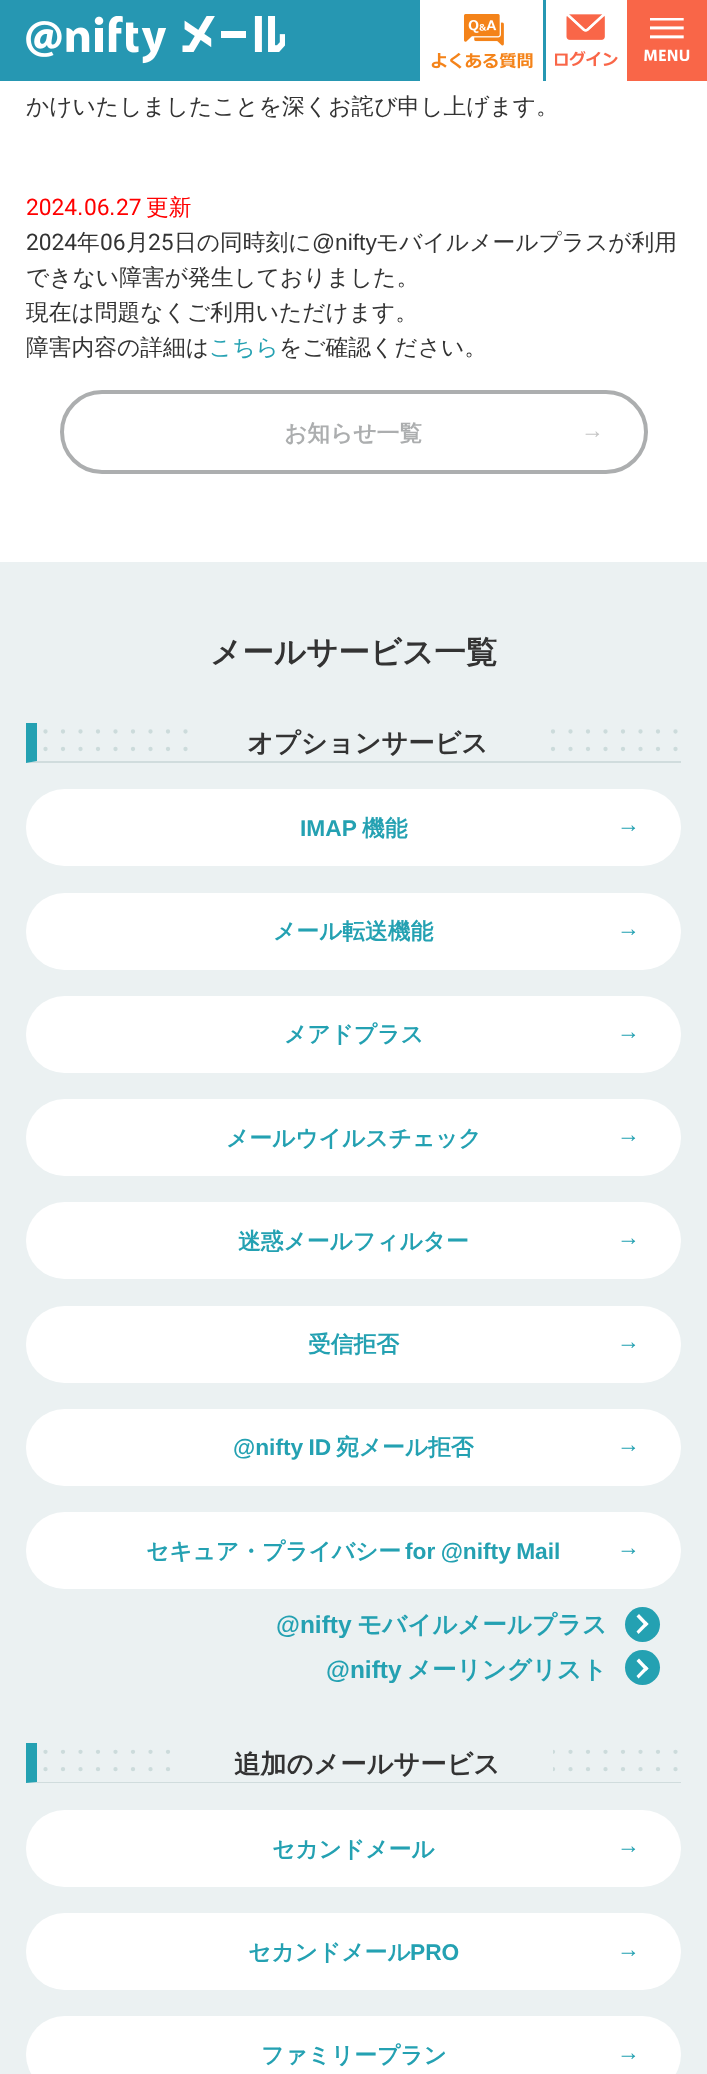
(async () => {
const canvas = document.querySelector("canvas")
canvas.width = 707
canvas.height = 2074
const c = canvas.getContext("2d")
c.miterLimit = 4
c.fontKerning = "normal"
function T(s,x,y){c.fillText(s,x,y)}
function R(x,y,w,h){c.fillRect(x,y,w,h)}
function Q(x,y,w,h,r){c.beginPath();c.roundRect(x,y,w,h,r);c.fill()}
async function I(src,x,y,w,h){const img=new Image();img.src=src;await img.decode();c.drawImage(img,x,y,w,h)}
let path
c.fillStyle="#fff"
R(0,0,707,2074)
c.fillStyle="#2697b2"
R(0,0,546,81)
await I("1.png",26,16,259,48)
c.fillStyle="#fff"
R(420,0,123,81)
await I("2.png",431,14,102,55)
await I("3.png",555,14,63,53)
c.fillStyle="#f96648"
R(627,0,80,81)
await I("4.png",644,18,46,43)
c.font="500 22.75px WenQuanYi Zen Hei"
c.fillStyle="#333"
T("かけいたしましたことを深くお詫び申し上げます。",26,114)
c.font="22.75px Roboto"
c.fillStyle="#f00"
T("2024",26,215)
c.font="22.75px Liberation Sans"
T(".",77,215)
c.font="22.75px Roboto"
T("06",84,215)
c.font="22.75px Liberation Sans"
T(".",109,215)
c.font="22.75px Roboto"
T("27",116,215)
c.font="500 22.75px WenQuanYi Zen Hei"
T("更新",146,215)
c.font="22.75px Roboto"
c.fillStyle="#333"
T("2024",26,250)
c.font="500 22.75px WenQuanYi Zen Hei"
T("年",77,250)
c.font="22.75px Roboto"
T("06",100,250)
c.font="500 22.75px WenQuanYi Zen Hei"
T("月",126,250)
c.font="22.75px Roboto"
T("25",148,250)
c.font="500 22.75px WenQuanYi Zen Hei"
T("日の同時刻に",174,250)
c.font="22.75px Liberation Sans"
T("@nifty",312,250)
c.font="500 22.75px WenQuanYi Zen Hei"
T("モバイルメールプラスが利用",376,250)
T("できない障害が発生しておりました。",26,285)
T("現在は問題なくご利用いただけます。",26,320)
T("障害内容の詳細は",26,355)
c.fillStyle="#24a1b2"
T("こちら",209,355)
c.fillStyle="#333"
T("をご確認ください。",279,355)
c.beginPath()
c.roundRect(62,392,584,80,40)
c.strokeStyle="#acaeaf"
c.lineWidth=4
c.stroke()
c.font="bold 22.75px WenQuanYi Zen Hei"
c.fillStyle="#acaeaf"
T("お知らせ一覧",284,441)
c.font="bold 22.75px Liberation Sans"
c.fillStyle="#c4c4c4"
T("→",581,438)
c.fillStyle="#ebf1f2"
R(0,562,707,1512)
c.font="bold 31.5px WenQuanYi Zen Hei"
c.fillStyle="#333"
T("メールサービス一覧",210,663)
path = new Path2D("M28 731.5h647.9")
c.strokeStyle="#ccdbdb"
c.lineWidth=4.3
c.lineCap="round"
c.setLineDash([0,17.5])
c.stroke(path)
path = new Path2D("M28 749h647.9")
c.stroke(path)
c.fillStyle="#d0dcdd"
path = new Path2D("M681 763h-655l11-2h644z")
c.fill(path)
c.fillStyle="#24a1b2"
path = new Path2D("M26 763v-40h11v38z")
c.fill(path)
c.fillStyle="#ebf1f2"
R(200,729,338,23)
c.font="bold 26.25px WenQuanYi Zen Hei"
c.fillStyle="#333"
T("オプションサービス",247,752)
c.fillStyle="#fff"
Q(26,789,655,77,38.5)
c.font="bold 22.75px Liberation Sans"
c.fillStyle="#24a1b2"
T("IMAP",300,836)
c.font="bold 22.75px WenQuanYi Zen Hei"
T("機能",362,836)
c.font="bold 22.75px Liberation Sans"
T("→",617,832)
c.fillStyle="#fff"
Q(26,893,655,77,38.5)
c.font="bold 22.75px WenQuanYi Zen Hei"
c.fillStyle="#24a1b2"
T("メール転送機能",273,939)
c.font="bold 22.75px Liberation Sans"
T("→",617,936)
c.fillStyle="#fff"
Q(26,996,655,77,38.5)
c.font="bold 22.75px WenQuanYi Zen Hei"
c.fillStyle="#24a1b2"
T("メアドプラス",284,1042)
c.font="bold 22.75px Liberation Sans"
T("→",617,1039)
c.fillStyle="#fff"
Q(26,1099,655,77,38.5)
c.font="bold 22.75px WenQuanYi Zen Hei"
c.fillStyle="#24a1b2"
T("メールウイルスチェック",226,1146)
c.font="bold 22.75px Liberation Sans"
T("→",617,1142)
c.fillStyle="#fff"
Q(26,1202,655,77,38.5)
c.font="bold 22.75px WenQuanYi Zen Hei"
c.fillStyle="#24a1b2"
T("迷惑メールフィルター",238,1249)
c.font="bold 22.75px Liberation Sans"
T("→",617,1245)
c.fillStyle="#fff"
Q(26,1306,655,77,38.5)
c.font="bold 22.75px WenQuanYi Zen Hei"
c.fillStyle="#24a1b2"
T("受信拒否",308,1352)
c.font="bold 22.75px Liberation Sans"
T("→",617,1349)
c.fillStyle="#fff"
Q(26,1409,655,77,38.5)
c.wordSpacing="-1px"
c.fillStyle="#24a1b2"
T("@nifty ID",233,1455)
c.wordSpacing="0px"
c.font="bold 22.75px WenQuanYi Zen Hei"
T("宛メール拒否",336,1455)
c.font="bold 22.75px Liberation Sans"
T("→",617,1452)
c.fillStyle="#fff"
Q(26,1512,655,77,38.5)
c.font="bold 22.75px WenQuanYi Zen Hei"
c.fillStyle="#24a1b2"
T("セキュア・プライバシー",146,1559)
c.wordSpacing="-1px"
c.font="bold 22.75px Liberation Sans"
T("for @nifty Mail",405,1559)
c.wordSpacing="0px"
T("→",617,1555)
c.font="bold 24.5px Liberation Sans"
T("@nifty",276,1633)
c.font="bold 24.5px WenQuanYi Zen Hei"
T("モバイルメールプラス",357,1633)
c.beginPath()
c.arc(642.5,1624.5,17.5,0,7)
c.fill()
c.fillStyle="#fff"
path = new Path2D("M639 1614l9.5 10l-2.5 2.5l-9.5-10z")
c.fill(path)
path = new Path2D("M646 1621.5l2.5 2.5l-10 10l-2-2.5z")
c.fill(path)
c.font="bold 24.5px Liberation Sans"
c.fillStyle="#24a1b2"
T("@nifty",326,1678)
c.font="bold 24.5px WenQuanYi Zen Hei"
T("メーリングリスト",407,1678)
c.beginPath()
c.arc(642.5,1667.5,17.5,0,7)
c.fill()
c.fillStyle="#fff"
path = new Path2D("M639 1658.5l9.5 10l-2.5 2.5l-9.5-10z")
c.fill(path)
path = new Path2D("M646 1666l2.5 2.5l-10 10l-2-2.5z")
c.fill(path)
path = new Path2D("M28 1751.8h647.9")
c.stroke(path)
path = new Path2D("M28 1769.2h647.9")
c.stroke(path)
c.fillStyle="#d0dcdd"
path = new Path2D("M681 1783h-655l11-1h644z")
c.fill(path)
c.fillStyle="#24a1b2"
path = new Path2D("M26 1783v-40h11v39z")
c.fill(path)
c.fillStyle="#ebf1f2"
R(183,1749,370,23)
c.font="bold 26.25px WenQuanYi Zen Hei"
c.fillStyle="#333"
T("追加のメールサービス",234,1773)
c.fillStyle="#fff"
Q(26,1810,655,77,38.5)
c.font="bold 22.75px WenQuanYi Zen Hei"
c.fillStyle="#24a1b2"
T("セカンドメール",272,1857)
c.font="bold 22.75px Liberation Sans"
T("→",617,1853)
c.fillStyle="#fff"
Q(26,1913,655,77,38.5)
c.font="bold 22.75px WenQuanYi Zen Hei"
c.fillStyle="#24a1b2"
T("セカンドメール",248,1960)
c.font="bold 22.75px Liberation Sans"
T("PRO",410,1960)
T("→",617,1957)
c.fillStyle="#fff"
Q(26,2016,655,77,38.5)
c.font="bold 22.75px WenQuanYi Zen Hei"
c.fillStyle="#24a1b2"
T("ファミリープラン",261,2063)
c.font="bold 22.75px Liberation Sans"
T("→",617,2060)
})()
